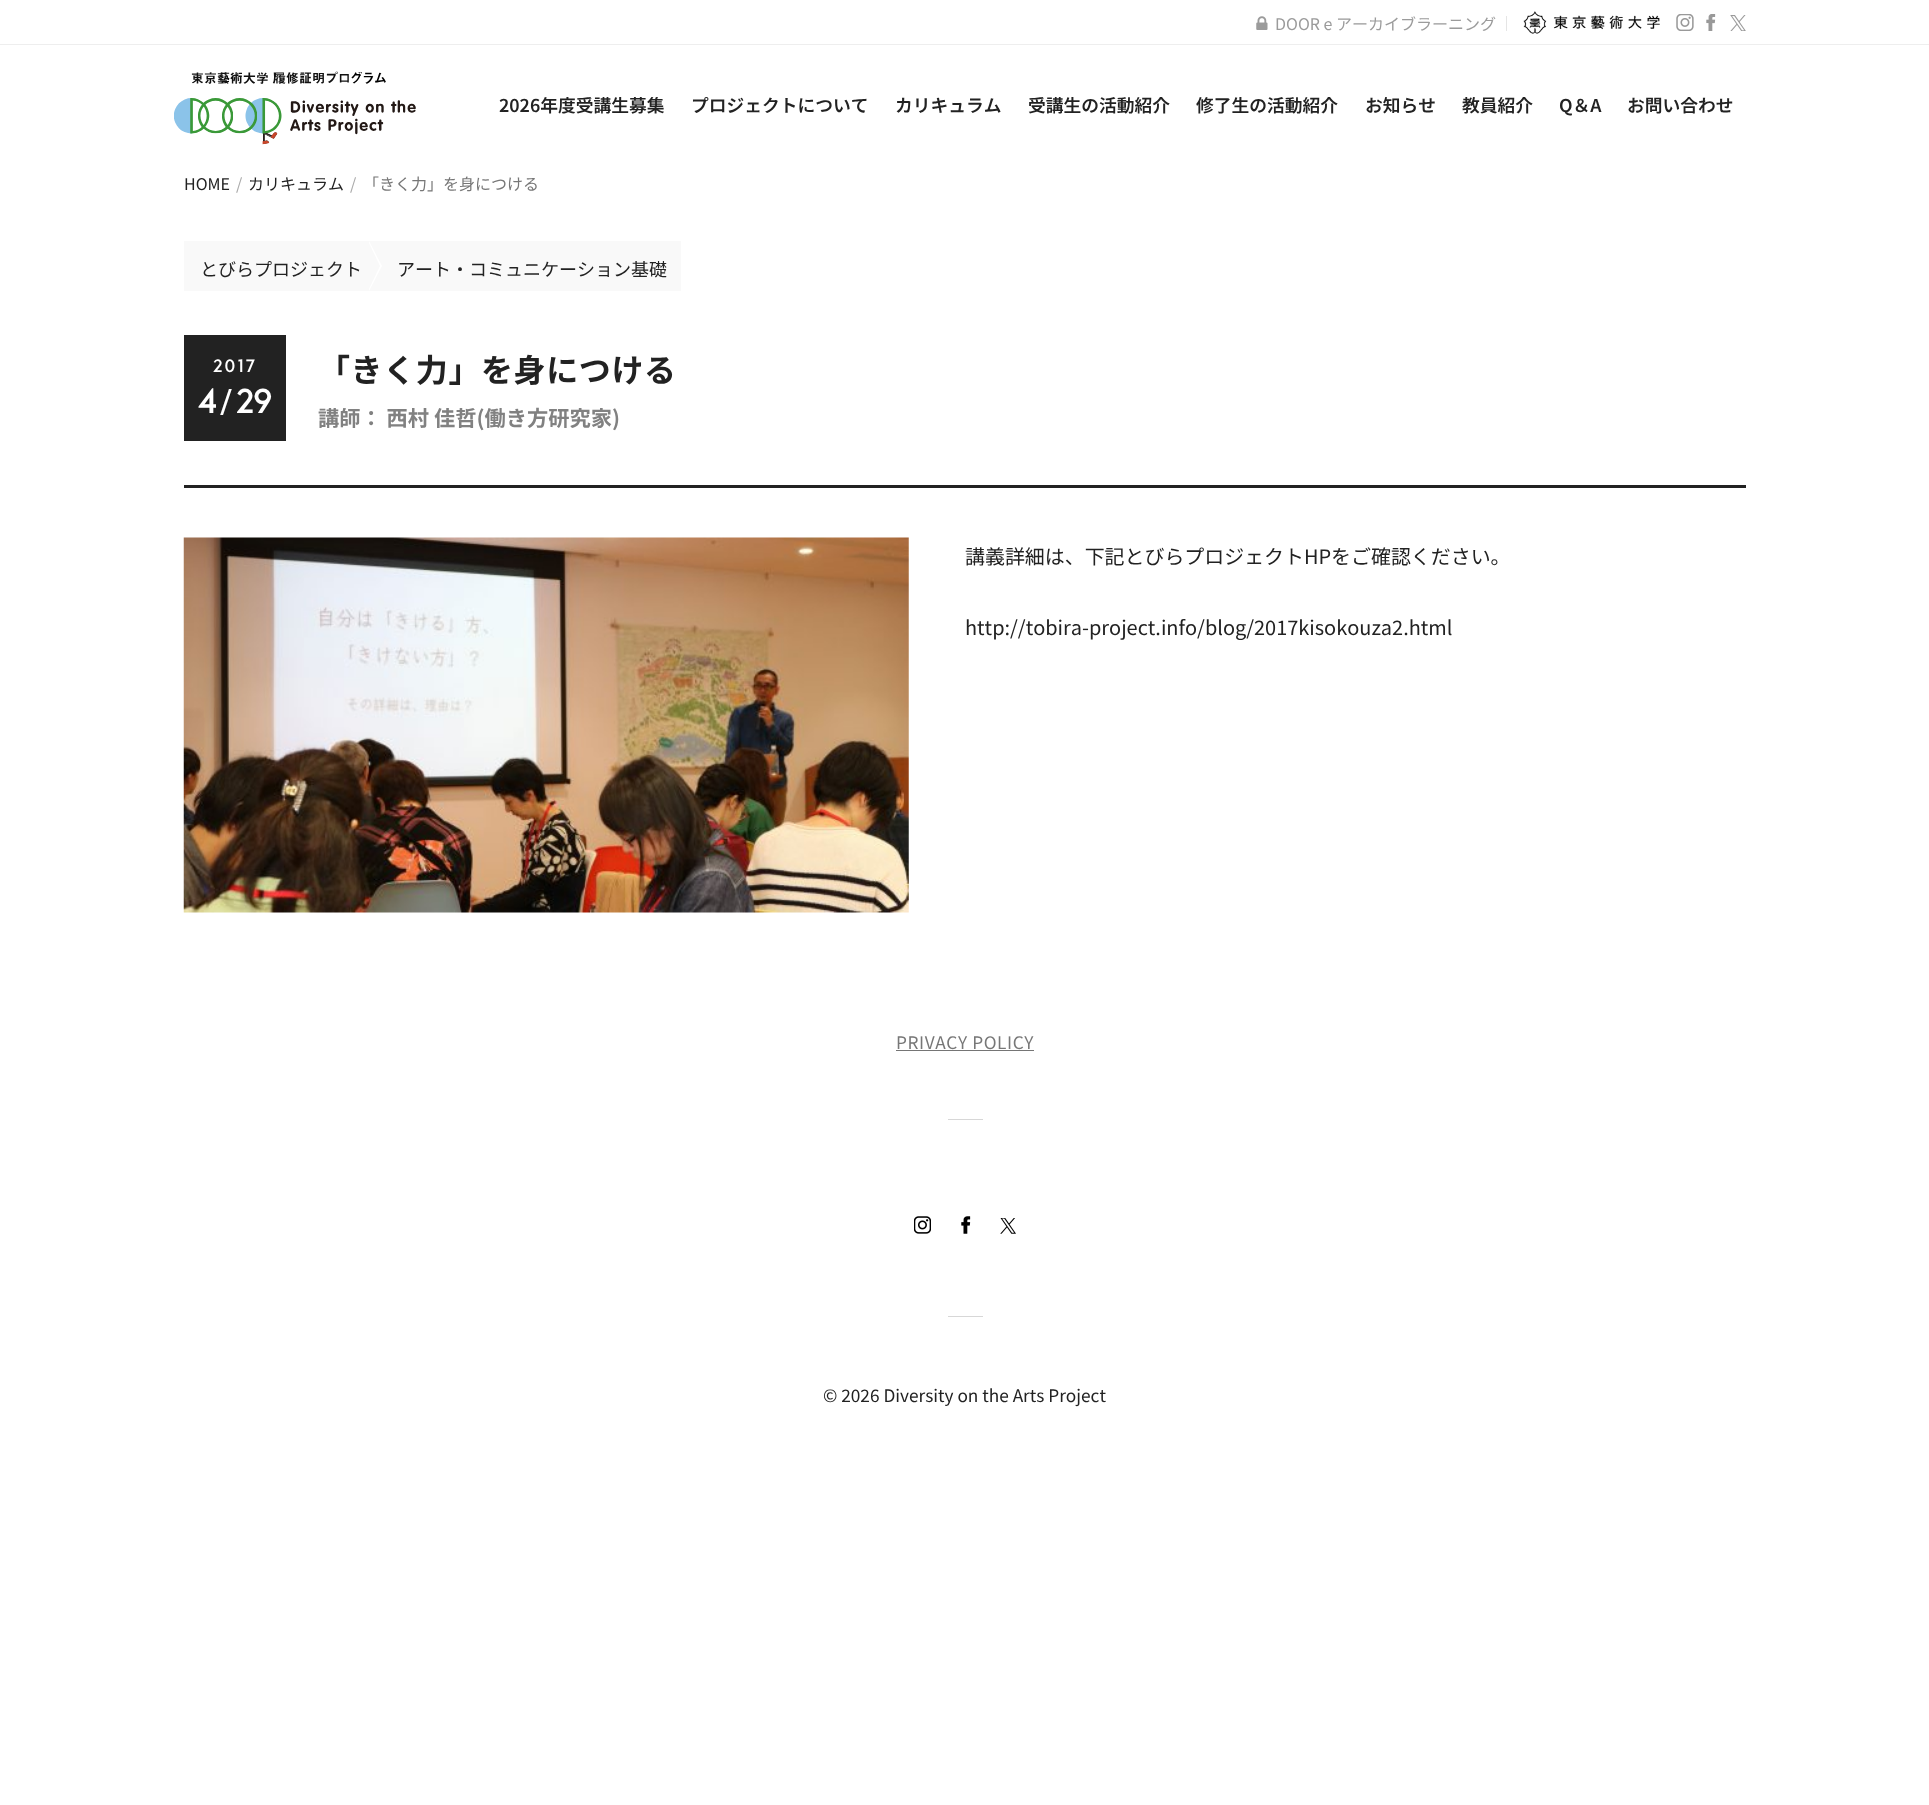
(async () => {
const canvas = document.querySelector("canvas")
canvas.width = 1929
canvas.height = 1805
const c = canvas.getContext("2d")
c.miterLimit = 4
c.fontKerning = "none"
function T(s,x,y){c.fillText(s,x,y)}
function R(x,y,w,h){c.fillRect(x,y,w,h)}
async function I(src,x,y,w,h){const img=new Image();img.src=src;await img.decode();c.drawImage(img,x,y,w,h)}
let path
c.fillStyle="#fff"
R(0,0,1929,1805)
c.fillStyle="#eee"
R(0,44,1929,1)
await I("1.png",1256,16,12,14)
c.font="16px Noto Sans JP"
c.fillStyle="#9b9b9b"
T("DOOR e アーカイブラーニング",1275,30)
c.fillStyle="#e5e5e5"
R(1506,16,1,15)
await I("2.png",1523,11,137,23)
await I("3.png",1676,14,18,17)
await I("4.png",1706,14,10,17)
await I("5.png",1730,15,16,16)
await I("6.png",174,71,242,74)
c.font="600 17.75px Noto Sans JP"
c.fillStyle="#222"
T("2026年度受講生募集",499,112)
T("プロジェクトについて",691,112)
T("カリキュラム",895,112)
T("受講生の活動紹介",1028,112)
T("修了生の活動紹介",1196,112)
T("お知らせ",1365,112)
T("教員紹介",1462,112)
T("Q＆A",1559,112)
T("お問い合わせ",1627,112)
c.font="16px Noto Sans JP"
T("HOME",184,190)
c.fillStyle="#aaa"
T("/",236,190)
c.fillStyle="#222"
T("カリキュラム",248,190)
c.fillStyle="#aaa"
T("/",350,190)
c.fillStyle="#777"
T("「きく力」を身につける",363,190)
c.fillStyle="#f9f9f9"
R(184,241,497,50)
c.fillStyle="#fff"
path = new Path2D("M369 291v-50l13 25z")
c.fill(path)
c.fillStyle="#f9f9f9"
path = new Path2D("M368 291v-50l12 25z")
c.fill(path)
c.font="18px Noto Sans JP"
c.fillStyle="#222"
T("とびらプロジェクト",200,276)
T("アート・コミュニケーション基礎",397,276)
R(184,485,1562,3)
R(184,335,102,106)
c.letterSpacing="2.5px"
c.font="bold 17.25px 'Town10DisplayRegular'"
c.fillStyle="#fff"
T("2017",213,372)
c.letterSpacing="0px"
c.font="bold 33px 'Town10DisplayRegular'"
T("4",198,413)
c.font="33px 'Town10DisplayRegular'"
T("/",219,413)
c.font="bold 33px 'Town10DisplayRegular'"
T("29",236,413)
c.letterSpacing="0.6px"
c.font="bold 32px Noto Sans JP"
c.fillStyle="#222"
T("「きく力」を身につける",318,382)
c.letterSpacing="0px"
c.font="bold 21.25px Noto Sans JP"
c.fillStyle="#818181"
T("講師： 西村 佳哲(働き方研究家)",318,426)
await I("7.png",183,537,726,376)
c.font="19.95px Noto Sans JP"
c.fillStyle="#222"
T("講義詳細は、下記とびらプロジェクトHPをご確認ください。",965,564)
T("http://tobira-project.info/blog/2017kisokouza2.html",965,635)
c.letterSpacing="0.6px"
c.font="17.25px Noto Sans JP"
c.fillStyle="#777"
T("PRIVACY POLICY",896,1049)
c.fillStyle="#757575"
R(896,1050,138,1)
c.fillStyle="#d7d7d7"
R(948,1119,35,1)
await I("8.png",914,1216,17,18)
await I("9.png",961,1216,10,18)
await I("10.png",1000,1218,16,16)
R(948,1316,35,1)
c.letterSpacing="0px"
c.fillStyle="#222"
T("© 2026 Diversity on the Arts Project",823,1402)
})()
